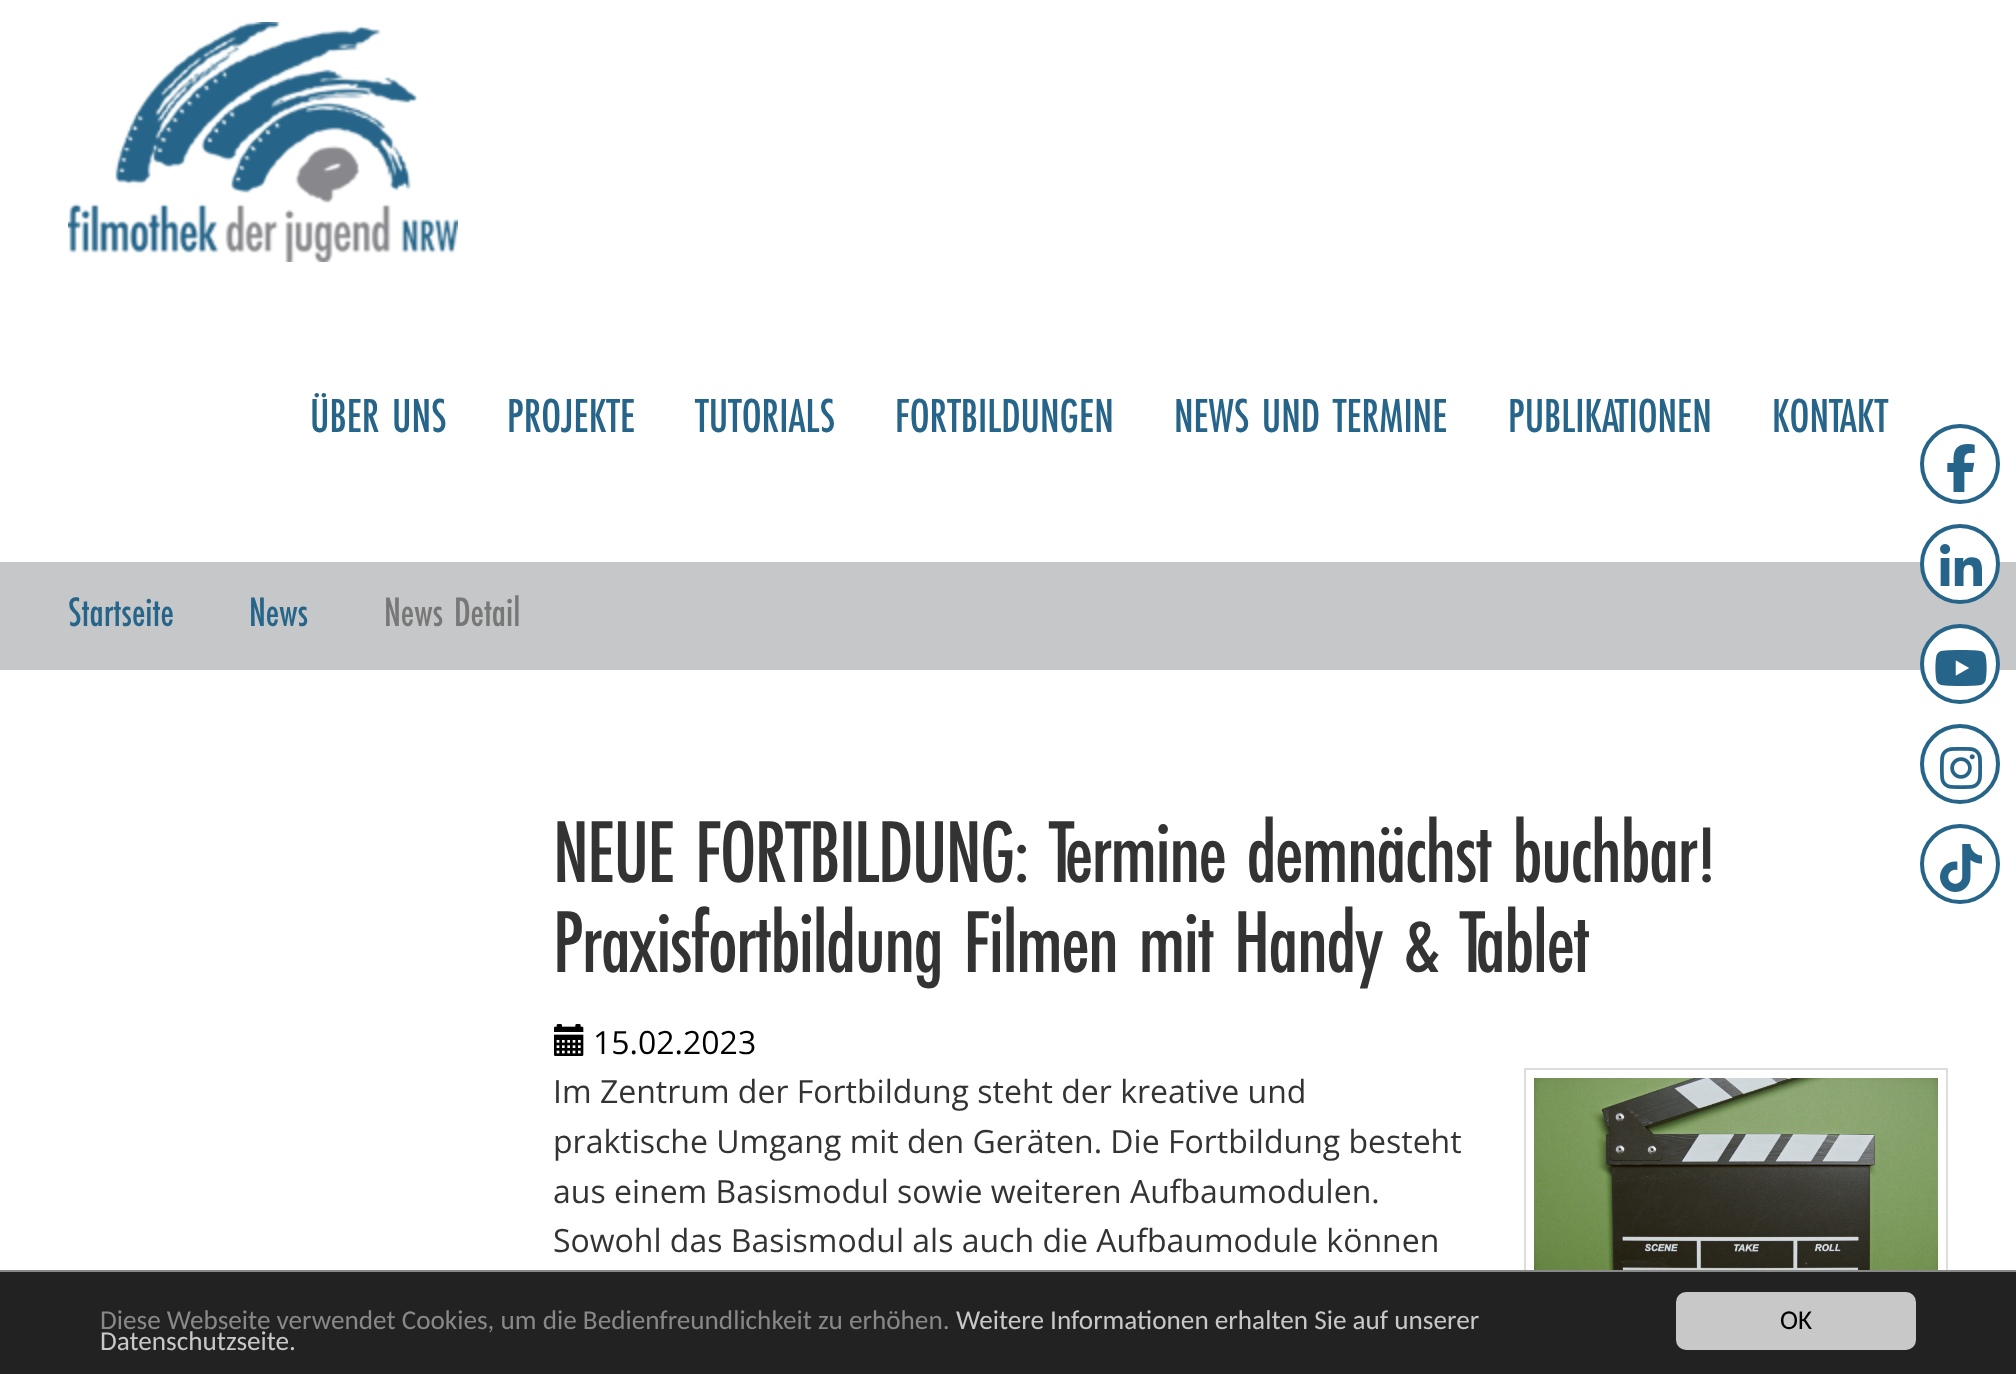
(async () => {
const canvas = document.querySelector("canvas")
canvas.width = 2016
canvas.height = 1374
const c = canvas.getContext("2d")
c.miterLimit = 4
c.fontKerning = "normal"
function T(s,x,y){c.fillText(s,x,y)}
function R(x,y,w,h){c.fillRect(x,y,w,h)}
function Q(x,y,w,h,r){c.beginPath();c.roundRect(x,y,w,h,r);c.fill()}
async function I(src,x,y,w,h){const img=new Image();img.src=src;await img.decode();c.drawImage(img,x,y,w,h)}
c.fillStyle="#fff"
R(0,0,2016,1374)
await I("1.png",68,22,390,240)
c.font="100 44.75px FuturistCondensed"
c.fillStyle="#266589"
T("ÜBER UNS",310,432)
T("PROJEKTE",507,432)
T("TUTORIALS",695,432)
T("FORTBILDUNGEN",895,432)
T("NEWS UND TERMINE",1174,432)
T("PUBLIKATIONEN",1508,432)
T("KONTAKT",1772,432)
c.fillStyle="#c5c7c9"
R(0,562,2016,108)
c.font="100 38.5px FuturistCondensed"
c.fillStyle="#266589"
T("Startseite",68,626)
T("News",249,626)
c.fillStyle="#777"
T("News Detail",384,626)
c.beginPath()
c.arc(1960,464,38,0,7)
c.strokeStyle="#266589"
c.lineWidth=4
c.stroke()
await I("2.png",1947,444,28,48)
c.fillStyle="#fff"
c.beginPath()
c.arc(1960,564,38,0,7)
c.fill()
c.stroke()
await I("3.png",1940,544,42,42)
c.beginPath()
c.arc(1960,664,38,0,7)
c.fill()
c.stroke()
await I("4.png",1935,650,52,36)
c.beginPath()
c.arc(1960,764,38,0,7)
c.stroke()
await I("5.png",1940,747,42,42)
c.beginPath()
c.arc(1960,864,38,0,7)
c.stroke()
await I("6.png",1940,844,42,48)
c.letterSpacing="-1.65px"
c.font="100 82px FuturistCondensed"
c.fillStyle="#333"
T("NEUE FORTBILDUNG: Termine demnächst buchbar!",553,882)
T("Praxisfortbildung Filmen mit Handy & Tablet",553,972)
await I("7.png",554,1024,30,32)
c.letterSpacing="0px"
c.font="32px Open Sans"
c.fillStyle="#000"
T("15.02.2023",593,1054)
c.fillStyle="#333"
T("Im Zentrum der Fortbildung steht der kreative und",553,1103)
T("praktische Umgang mit den Geräten. Die Fortbildung besteht",553,1153)
T("aus einem Basismodul sowie weiteren Aufbaumodulen.",553,1203)
T("Sowohl das Basismodul als auch die Aufbaumodule können",553,1252)
c.strokeStyle="#ddd"
c.lineWidth=2
c.strokeRect(1525,1069,422,240)
await I("8.png",1534,1078,404,192)
c.fillStyle="#222"
R(0,1272,2016,102)
c.fillStyle="#888"
R(0,1270,2016,2)
c.font="27.2px Carlito"
T("Diese Webseite verwendet Cookies, um die Bedienfreundlichkeit zu erhöhen.",100,1329)
c.fillStyle="#c8c8c8"
T("Weitere Informationen erhalten Sie auf unserer",956,1329)
T("Datenschutzseite.",100,1350)
Q(1676,1292,240,58,10)
c.fillStyle="#000"
T("OK",1780,1329)
})()
